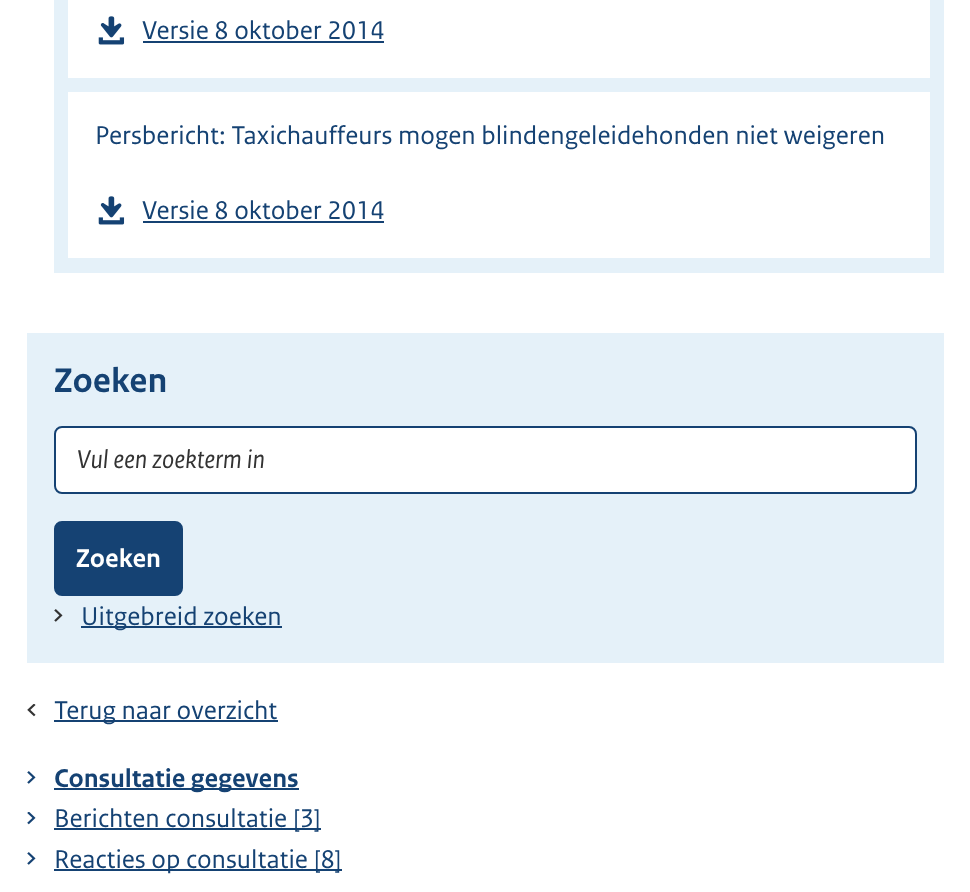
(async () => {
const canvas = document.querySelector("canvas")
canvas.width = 970
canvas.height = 892
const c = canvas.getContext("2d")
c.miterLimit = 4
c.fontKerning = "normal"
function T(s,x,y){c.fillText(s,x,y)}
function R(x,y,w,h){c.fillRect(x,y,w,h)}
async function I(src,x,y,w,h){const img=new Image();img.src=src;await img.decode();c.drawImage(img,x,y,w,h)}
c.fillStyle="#fff"
R(0,0,970,892)
c.fillStyle="#e5f1f9"
R(54,0,890,273)
c.fillStyle="#fff"
R(68,0,862,78)
await I("1.png",98,16,27,29)
c.font="27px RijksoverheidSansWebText"
c.fillStyle="#154273"
T("Versie 8 oktober 2014",142,39)
R(143,41,241,2)
c.fillStyle="#fff"
R(68,92,862,166)
c.fillStyle="#154273"
T("Persbericht: Taxichauffeurs mogen blindengeleidehonden niet weigeren",95,144)
await I("1.png",98,196,27,29)
T("Versie 8 oktober 2014",142,219)
R(143,221,241,2)
c.fillStyle="#e5f1f9"
R(27,333,917,330)
c.font="bold 36px RijksoverheidSansWebText"
c.fillStyle="#154273"
T("Zoeken",54,392)
c.fillStyle="#fff"
c.beginPath()
c.roundRect(55,427,861,66,7)
c.fill()
c.strokeStyle="#154273"
c.lineWidth=2
c.stroke()
c.font="italic 27px RijksoverheidSansWebText"
c.fillStyle="#333"
T("Vul een zoekterm in",77,468)
c.fillStyle="#154273"
c.beginPath()
c.roundRect(55,522,127,73,7)
c.fill()
c.stroke()
c.font="bold 27px RijksoverheidSansWebText"
c.fillStyle="#fff"
T("Zoeken",76,567)
await I("2.png",54,609,9,13)
c.fillStyle="#154273"
R(81,626,201,2)
c.font="27px RijksoverheidSansWebText"
T("Uitgebreid zoeken",81,625)
await I("3.png",27,704,9,13)
R(54,720,224,2)
T("Terug naar overzicht",54,719)
await I("4.png",27,771,9,13)
R(54,788,245,2)
c.font="bold 27px RijksoverheidSansWebText"
T("Consultatie gegevens",54,787)
await I("5.png",27,812,9,13)
R(54,828,267,2)
c.font="27px RijksoverheidSansWebText"
T("Berichten consultatie [3]",54,827)
await I("4.png",27,852,9,13)
R(54,869,288,2)
T("Reacties op consultatie [8]",54,868)
})()
